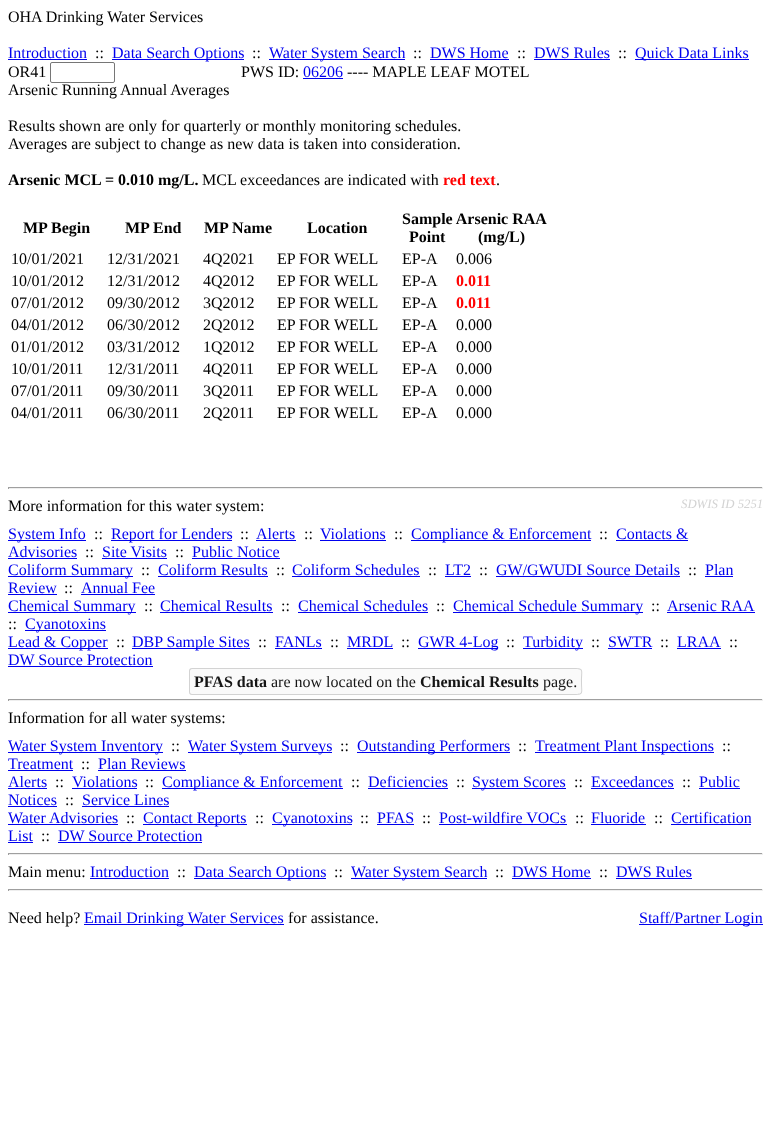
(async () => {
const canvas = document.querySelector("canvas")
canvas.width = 771
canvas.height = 1130
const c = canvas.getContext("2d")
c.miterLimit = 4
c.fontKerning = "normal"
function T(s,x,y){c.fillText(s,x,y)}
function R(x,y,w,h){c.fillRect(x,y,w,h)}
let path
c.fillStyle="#fff"
R(0,0,771,1130)
c.font="16px Liberation Serif"
c.fillStyle="#000"
T("OHA Drinking Water Services",8,22)
c.fillStyle="#00e"
T("Introduction",8,58)
R(8,59,79,1)
c.fillStyle="#000"
T("::",95,58)
c.fillStyle="#00e"
R(112,59,132,1)
T("Data Search Options",112,58)
c.fillStyle="#000"
T("::",252,58)
c.fillStyle="#00e"
R(269,59,136,1)
T("Water System Search",269,58)
c.fillStyle="#000"
T("::",413,58)
c.fillStyle="#00e"
T("DWS Home",430,58)
R(430,59,79,1)
c.fillStyle="#000"
T("::",517,58)
c.fillStyle="#00e"
T("DWS Rules",534,58)
R(534,59,76,1)
c.fillStyle="#000"
T("::",618,58)
c.fillStyle="#00e"
R(635,59,114,1)
T("Quick Data Links",635,58)
c.fillStyle="#000"
T("OR41",8,77)
c.beginPath()
c.roundRect(50.5,62.5,64,20,1.5)
c.strokeStyle="#767676"
c.stroke()
T("PWS ID:",241,77)
c.fillStyle="#00e"
T("06206",303,77)
R(303,78,40,1)
c.fillStyle="#000"
T("---- MAPLE LEAF MOTEL",347,77)
T("Arsenic Running Annual Averages",8,95)
T("Results shown are only for quarterly or monthly monitoring schedules.",8,131)
T("Averages are subject to change as new data is taken into consideration.",8,149)
c.font="bold 16px Liberation Serif"
T("Arsenic MCL = 0.010 mg/L.",8,185)
c.font="16px Liberation Serif"
T("MCL exceedances are indicated with",202,185)
c.font="bold 16px Liberation Serif"
c.fillStyle="#f00"
T("red text",443,185)
c.font="16px Liberation Serif"
c.fillStyle="#000"
T(".",496,185)
c.font="bold 16px Liberation Serif"
T("MP Begin",23,233)
T("MP End",125,233)
T("MP Name",204,233)
T("Location",307,233)
T("Sample Arsenic RAA",402,224)
T("Point",409,242)
T("(mg/L)",478,242)
c.font="16px Liberation Serif"
T("10/01/2021",11,264)
T("12/31/2021",107,264)
T("4Q2021",203,264)
T("EP FOR WELL",277,264)
T("EP-A",402,264)
T("0.006",456,264)
T("10/01/2012",11,286)
T("12/31/2012",107,286)
T("4Q2012",203,286)
T("EP FOR WELL",277,286)
T("EP-A",402,286)
c.font="bold 16px Liberation Serif"
c.fillStyle="#f00"
T("0.011",456,286)
c.font="16px Liberation Serif"
c.fillStyle="#000"
T("07/01/2012",11,308)
T("09/30/2012",107,308)
T("3Q2012",203,308)
T("EP FOR WELL",277,308)
T("EP-A",402,308)
c.font="bold 16px Liberation Serif"
c.fillStyle="#f00"
T("0.011",456,308)
c.font="16px Liberation Serif"
c.fillStyle="#000"
T("04/01/2012",11,330)
T("06/30/2012",107,330)
T("2Q2012",203,330)
T("EP FOR WELL",277,330)
T("EP-A",402,330)
T("0.000",456,330)
T("01/01/2012",11,352)
T("03/31/2012",107,352)
T("1Q2012",203,352)
T("EP FOR WELL",277,352)
T("EP-A",402,352)
T("0.000",456,352)
T("10/01/2011",11,374)
T("12/31/2011",107,374)
T("4Q2011",203,374)
T("EP FOR WELL",277,374)
T("EP-A",402,374)
T("0.000",456,374)
T("07/01/2011",11,396)
T("09/30/2011",107,396)
T("3Q2011",203,396)
T("EP FOR WELL",277,396)
T("EP-A",402,396)
T("0.000",456,396)
T("04/01/2011",11,418)
T("06/30/2011",107,418)
T("2Q2011",203,418)
T("EP FOR WELL",277,418)
T("EP-A",402,418)
T("0.000",456,418)
c.fillStyle="#9f9f9f"
R(8,487,755,1)
c.fillStyle="#eee"
R(762,487,1,2)
R(8,488,755,1)
c.fillStyle="#9f9f9f"
R(8,487,1,2)
c.fillStyle="#000"
T("More information for this water system:",8,511)
c.font="italic 12.75px Liberation Serif"
c.fillStyle="#d3d3d3"
T("SDWIS ID 5251",681,508)
c.fillStyle="#00e"
R(8,540,78,1)
c.font="16px Liberation Serif"
T("System Info",8,539)
c.fillStyle="#000"
T("::",94,539)
c.fillStyle="#00e"
R(111,540,121,1)
T("Report for Lenders",111,539)
c.fillStyle="#000"
T("::",240,539)
c.fillStyle="#00e"
T("Alerts",256,539)
R(256,540,40,1)
c.fillStyle="#000"
T("::",304,539)
c.fillStyle="#00e"
T("Violations",320,539)
R(320,540,66,1)
c.fillStyle="#000"
T("::",394,539)
c.fillStyle="#00e"
R(411,540,180,1)
T("Compliance & Enforcement",411,539)
c.fillStyle="#000"
T("::",599,539)
c.fillStyle="#00e"
T("Contacts &",616,539)
R(616,540,72,1)
T("Advisories",8,557)
R(8,558,69,1)
c.fillStyle="#000"
T("::",85,557)
c.fillStyle="#00e"
T("Site Visits",102,557)
R(102,558,65,1)
c.fillStyle="#000"
T("::",175,557)
c.fillStyle="#00e"
T("Public Notice",192,557)
R(192,558,88,1)
R(8,576,125,1)
T("Coliform Summary",8,575)
c.fillStyle="#000"
T("::",141,575)
c.fillStyle="#00e"
T("Coliform Results",158,575)
R(158,576,110,1)
c.fillStyle="#000"
T("::",276,575)
c.fillStyle="#00e"
T("Coliform Schedules",292,575)
R(292,576,128,1)
c.fillStyle="#000"
T("::",428,575)
c.fillStyle="#00e"
T("LT2",445,575)
R(445,576,26,1)
c.fillStyle="#000"
T("::",479,575)
c.fillStyle="#00e"
T("GW/GWUDI Source Details",496,575)
R(496,576,184,1)
c.fillStyle="#000"
T("::",688,575)
c.fillStyle="#00e"
T("Plan",705,575)
R(705,576,28,1)
T("Review",8,593)
R(8,594,49,1)
c.fillStyle="#000"
T("::",64,593)
c.fillStyle="#00e"
T("Annual Fee",81,593)
R(81,594,74,1)
R(8,612,128,1)
T("Chemical Summary",8,611)
c.fillStyle="#000"
T("::",144,611)
c.fillStyle="#00e"
T("Chemical Results",160,611)
R(160,612,113,1)
c.fillStyle="#000"
T("::",281,611)
c.fillStyle="#00e"
T("Chemical Schedules",298,611)
R(298,612,130,1)
c.fillStyle="#000"
T("::",436,611)
c.fillStyle="#00e"
R(453,612,190,1)
T("Chemical Schedule Summary",453,611)
c.fillStyle="#000"
T("::",651,611)
c.fillStyle="#00e"
T("Arsenic RAA",667,611)
R(667,612,88,1)
c.fillStyle="#000"
T("::",8,629)
c.fillStyle="#00e"
R(25,630,81,1)
T("Cyanotoxins",25,629)
R(8,648,100,1)
T("Lead & Copper",8,647)
c.fillStyle="#000"
T("::",116,647)
c.fillStyle="#00e"
R(132,648,118,1)
T("DBP Sample Sites",132,647)
c.fillStyle="#000"
T("::",258,647)
c.fillStyle="#00e"
T("FANLs",275,647)
R(275,648,47,1)
c.fillStyle="#000"
T("::",330,647)
c.fillStyle="#00e"
T("MRDL",347,647)
R(347,648,46,1)
c.fillStyle="#000"
T("::",401,647)
c.fillStyle="#00e"
R(418,648,80,1)
T("GWR 4-Log",418,647)
c.fillStyle="#000"
T("::",506,647)
c.fillStyle="#00e"
R(523,648,60,1)
T("Turbidity",523,647)
c.fillStyle="#000"
T("::",591,647)
c.fillStyle="#00e"
T("SWTR",608,647)
R(608,648,44,1)
c.fillStyle="#000"
T("::",660,647)
c.fillStyle="#00e"
T("LRAA",677,647)
R(677,648,44,1)
c.fillStyle="#000"
T("::",729,647)
c.fillStyle="#00e"
T("DW Source Protection",8,665)
R(8,666,145,1)
c.fillStyle="#fafafa"
c.beginPath()
c.roundRect(189,668,78,27,[3,0,0,3])
c.fill()
c.fillStyle="#d3d3d3"
path = new Path2D("M192 668h75v27h-75c-2 0-3-1-3-3v-21c0-2 1-3 3-3zm0 1h75v25h-75c-1 0-2-1-2-2v-21c0-1 1-2 2-2z")
c.fill(path,"evenodd")
c.font="bold 16px Liberation Serif"
c.fillStyle="#151515"
T("PFAS data",194,687)
c.fillStyle="#fafafa"
R(267,669,272,25)
c.fillStyle="#d3d3d3"
R(267,668,272,1)
c.font="16px Liberation Serif"
c.fillStyle="#151515"
T("are now located on the",271,687)
c.font="bold 16px Liberation Serif"
T("Chemical Results",420,687)
c.fillStyle="#fafafa"
c.beginPath()
c.roundRect(539,668,43,27,[0,3,3,0])
c.fill()
c.fillStyle="#d3d3d3"
path = new Path2D("M539 668h33c13 0 10 1 10 14c0 12 3 13-10 13h-33zm0 1h33c12 0 9 0 9 13c0 12 3 12-9 12h-33z")
c.fill(path,"evenodd")
c.font="16px Liberation Serif"
c.fillStyle="#151515"
T("page.",543,687)
c.fillStyle="#d3d3d3"
R(267,694,272,1)
c.fillStyle="#9f9f9f"
R(8,699,755,1)
c.fillStyle="#eee"
R(762,699,1,2)
R(8,700,755,1)
c.fillStyle="#9f9f9f"
R(8,699,1,2)
c.fillStyle="#000"
T("Information for all water systems:",8,723)
c.fillStyle="#00e"
R(8,752,155,1)
T("Water System Inventory",8,751)
c.fillStyle="#000"
T("::",171,751)
c.fillStyle="#00e"
R(188,752,144,1)
T("Water System Surveys",188,751)
c.fillStyle="#000"
T("::",340,751)
c.fillStyle="#00e"
R(357,752,153,1)
T("Outstanding Performers",357,751)
c.fillStyle="#000"
T("::",518,751)
c.fillStyle="#00e"
R(535,752,179,1)
T("Treatment Plant Inspections",535,751)
c.fillStyle="#000"
T("::",722,751)
c.fillStyle="#00e"
T("Treatment",8,769)
R(8,770,65,1)
c.fillStyle="#000"
T("::",81,769)
c.fillStyle="#00e"
T("Plan Reviews",98,769)
R(98,770,88,1)
T("Alerts",8,787)
R(8,788,39,1)
c.fillStyle="#000"
T("::",55,787)
c.fillStyle="#00e"
T("Violations",72,787)
R(72,788,65,1)
c.fillStyle="#000"
T("::",145,787)
c.fillStyle="#00e"
R(162,788,181,1)
T("Compliance & Enforcement",162,787)
c.fillStyle="#000"
T("::",351,787)
c.fillStyle="#00e"
T("Deficiencies",368,787)
R(368,788,80,1)
c.fillStyle="#000"
T("::",456,787)
c.fillStyle="#00e"
R(472,788,94,1)
T("System Scores",472,787)
c.fillStyle="#000"
T("::",574,787)
c.fillStyle="#00e"
T("Exceedances",591,787)
R(591,788,83,1)
c.fillStyle="#000"
T("::",682,787)
c.fillStyle="#00e"
T("Public",699,787)
R(699,788,41,1)
T("Notices",8,805)
R(8,806,49,1)
c.fillStyle="#000"
T("::",65,805)
c.fillStyle="#00e"
T("Service Lines",82,805)
R(82,806,87,1)
T("Water Advisories",8,823)
R(8,824,110,1)
c.fillStyle="#000"
T("::",126,823)
c.fillStyle="#00e"
R(143,824,104,1)
T("Contact Reports",143,823)
c.fillStyle="#000"
T("::",255,823)
c.fillStyle="#00e"
R(272,824,80,1)
T("Cyanotoxins",272,823)
c.fillStyle="#000"
T("::",360,823)
c.fillStyle="#00e"
T("PFAS",377,823)
R(377,824,37,1)
c.fillStyle="#000"
T("::",422,823)
c.fillStyle="#00e"
T("Post-wildfire VOCs",439,823)
R(439,824,128,1)
c.fillStyle="#000"
T("::",575,823)
c.fillStyle="#00e"
T("Fluoride",591,823)
R(591,824,55,1)
c.fillStyle="#000"
T("::",654,823)
c.fillStyle="#00e"
T("Certification",671,823)
R(671,824,80,1)
T("List",8,841)
R(8,842,25,1)
c.fillStyle="#000"
T("::",41,841)
c.fillStyle="#00e"
T("DW Source Protection",58,841)
R(58,842,144,1)
c.fillStyle="#9f9f9f"
R(8,853,755,1)
c.fillStyle="#eee"
R(762,853,1,2)
R(8,854,755,1)
c.fillStyle="#9f9f9f"
R(8,853,1,2)
c.fillStyle="#000"
T("Main menu:",8,877)
c.fillStyle="#00e"
T("Introduction",90,877)
R(90,878,79,1)
c.fillStyle="#000"
T("::",177,877)
c.fillStyle="#00e"
R(194,878,132,1)
T("Data Search Options",194,877)
c.fillStyle="#000"
T("::",334,877)
c.fillStyle="#00e"
R(351,878,136,1)
T("Water System Search",351,877)
c.fillStyle="#000"
T("::",495,877)
c.fillStyle="#00e"
T("DWS Home",512,877)
R(512,878,79,1)
c.fillStyle="#000"
T("::",599,877)
c.fillStyle="#00e"
T("DWS Rules",616,877)
R(616,878,76,1)
c.fillStyle="#9f9f9f"
R(8,889,755,1)
c.fillStyle="#eee"
R(762,889,1,2)
R(8,890,755,1)
c.fillStyle="#9f9f9f"
R(8,889,1,2)
c.fillStyle="#000"
T("Need help?",8,923)
c.fillStyle="#00e"
R(84,924,200,1)
T("Email Drinking Water Services",84,923)
c.fillStyle="#000"
T("for assistance.",288,923)
c.fillStyle="#00e"
R(639,924,124,1)
T("Staff/Partner Login",639,923)
})()
